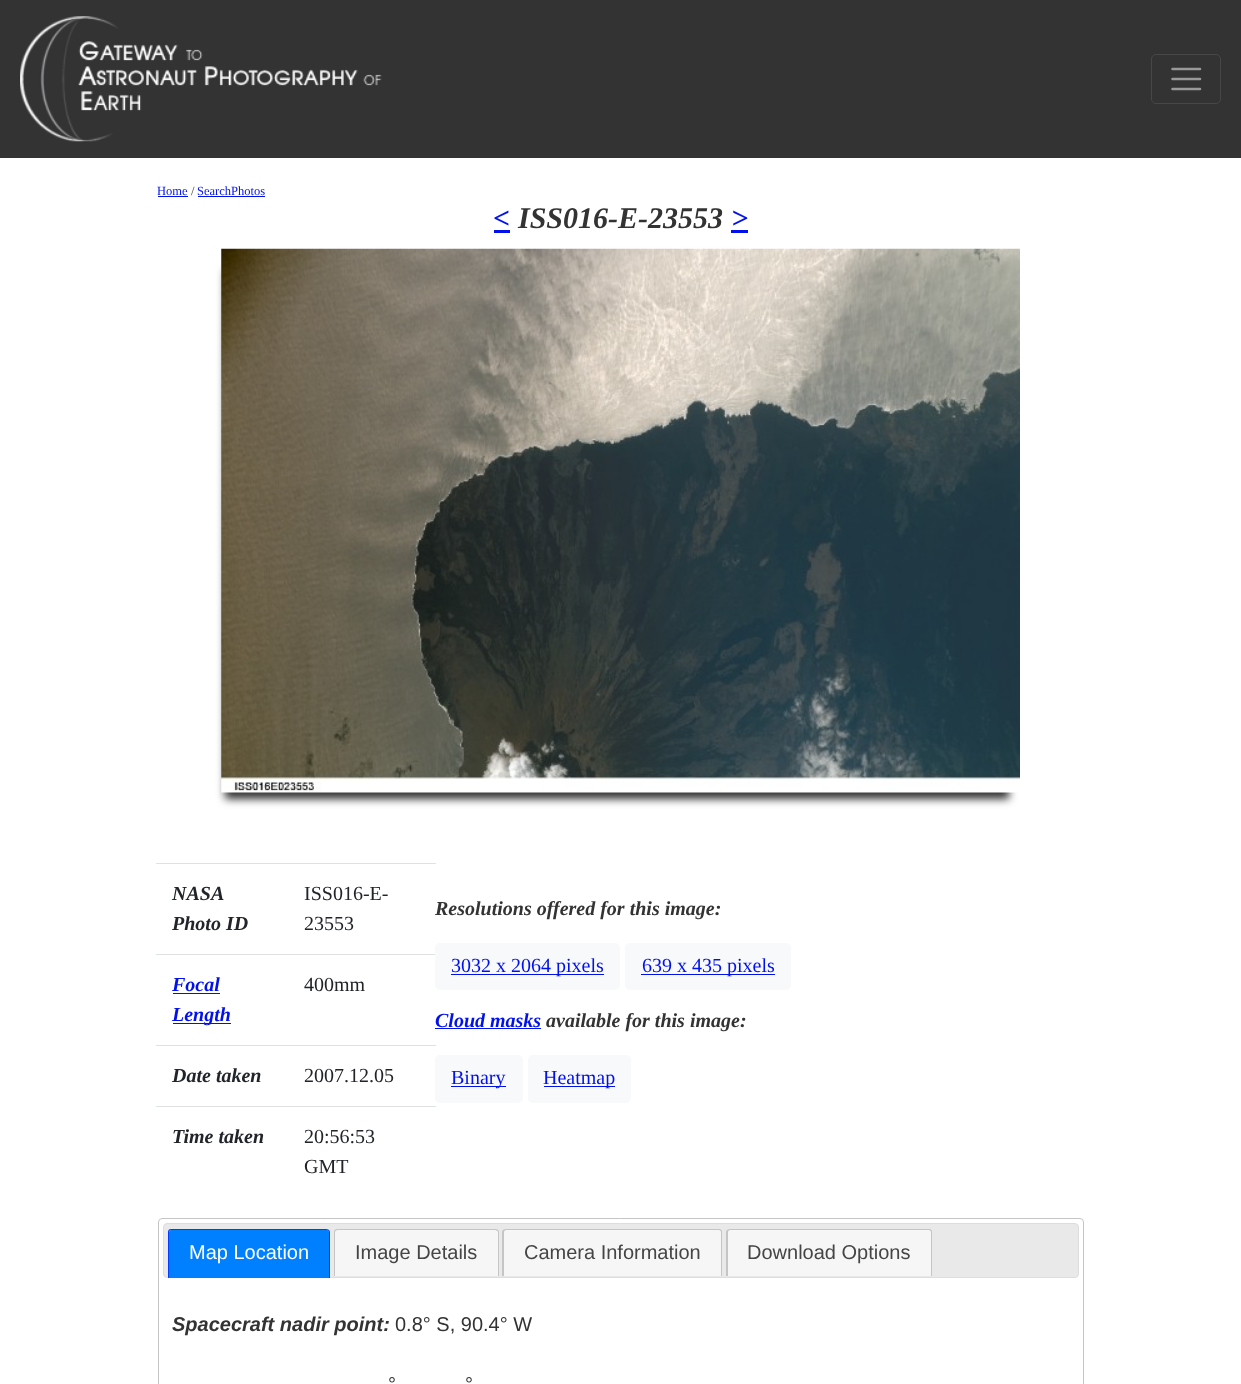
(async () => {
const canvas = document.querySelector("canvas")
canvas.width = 1241
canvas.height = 1384
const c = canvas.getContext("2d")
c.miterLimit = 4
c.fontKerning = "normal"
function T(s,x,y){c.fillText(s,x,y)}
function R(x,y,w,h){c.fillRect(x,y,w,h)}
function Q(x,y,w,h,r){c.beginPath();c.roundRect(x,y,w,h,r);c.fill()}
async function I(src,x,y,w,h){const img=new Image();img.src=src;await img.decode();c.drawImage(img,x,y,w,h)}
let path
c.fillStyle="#fff"
R(0,0,1241,1384)
c.fillStyle="#333"
R(0,0,1241,158)
await I("1.png",20,16,362,126)
c.beginPath()
c.roundRect(1151.5,54.5,69,49,4.5)
c.strokeStyle="#474747"
c.stroke()
path = new Path2D("M1172.5 69h27.5m-27.5 10h27.5m-27.5 10h27.5")
c.strokeStyle="#999"
c.lineWidth=2.5
c.lineCap="round"
c.stroke(path)
c.font="12.5px Liberation Serif"
c.fillStyle="#01e"
T("Home",157,195)
R(158,196,30,1)
c.fillStyle="#333"
T("/",191,195)
c.fillStyle="#01e"
T("SearchPhotos",197,195)
R(198,196,67,1)
c.font="italic bold 30px Liberation Serif"
T("<",493,228)
R(494,230,16,3)
c.fillStyle="#333"
T("ISS016-E-23553",518,228)
c.fillStyle="#01e"
T(">",731,228)
R(731,230,17,3)
c.fillStyle="#333"
c.filter="blur(4px)"
c.beginPath()
c.rect(225,270,784,529)
c.fill()
c.filter="none"
await I("2.png",221,248,799,545)
c.font="italic bold 20px Liberation Serif"
c.fillStyle="#212529"
T("NASA",172,900)
T("Photo ID",172,930)
c.fillStyle="#dee2e6"
R(156,863,280,1)
c.font="20px Liberation Serif"
c.fillStyle="#212529"
T("ISS016-E-",304,900)
T("23553",304,930)
c.font="italic bold 20px Liberation Serif"
c.fillStyle="#01e"
T("Focal",172,991)
R(173,993,47,1)
R(173,1023,58,1)
T("Length",172,1021)
c.fillStyle="#dee2e6"
R(156,954,280,1)
c.font="20px Liberation Serif"
c.fillStyle="#212529"
T("400mm",304,991)
c.font="italic bold 20px Liberation Serif"
T("Date taken",172,1082)
c.fillStyle="#dee2e6"
R(156,1045,280,1)
c.font="20px Liberation Serif"
c.fillStyle="#212529"
T("2007.12.05",304,1082)
c.font="italic bold 20px Liberation Serif"
T("Time taken",172,1143)
c.fillStyle="#dee2e6"
R(156,1106,280,1)
c.font="20px Liberation Serif"
c.fillStyle="#212529"
T("20:56:53",304,1143)
T("GMT",304,1173)
c.font="italic bold 20px Liberation Serif"
c.fillStyle="#333"
T("Resolutions offered for this image:",435,915)
c.fillStyle="#f8f9fa"
Q(435,943,185,47,5)
c.fillStyle="#01e"
R(451,974,153,1)
c.font="20px Liberation Serif"
T("3032 x 2064 pixels",451,972)
c.fillStyle="#f8f9fa"
Q(625,943,166,47,5)
c.fillStyle="#01e"
R(641,974,134,1)
T("639 x 435 pixels",642,972)
c.font="italic bold 20px Liberation Serif"
T("Cloud masks",435,1027)
R(435,1028,106,1)
c.fillStyle="#333"
T("available for this image:",546,1027)
c.fillStyle="#f8f9fa"
Q(435,1055,88,48,5)
c.fillStyle="#01e"
R(451,1086,55,1)
c.font="20px Liberation Serif"
T("Binary",451,1084)
c.fillStyle="#f8f9fa"
Q(528,1055,103,48,5)
c.fillStyle="#01e"
R(544,1086,71,1)
T("Heatmap",543,1084)
c.beginPath()
c.roundRect(158.5,1218.5,925,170,3.5)
c.strokeStyle="#c5c5c5"
c.lineWidth=1
c.stroke()
c.fillStyle="#e9e9e9"
c.beginPath()
c.roundRect(163.5,1223.5,915,54,3.5)
c.fill()
c.strokeStyle="#ddd"
c.stroke()
c.fillStyle="#007fff"
c.beginPath()
c.roundRect(169,1230,160,48,[2.5,2.5,0,0])
c.fill()
c.fillStyle="#003eff"
path = new Path2D("M171 1229h155c2 0 4 1 4 3v46h-162v-46c0-2 1-3 3-3zm0 1h155c2 0 3 1 3 2v46h-160v-46c0-1 1-2 2-2z")
c.fill(path,"evenodd")
c.font="20px Liberation Sans"
c.fillStyle="#fff"
T("Map Location",189,1259)
c.fillStyle="#f6f6f6"
c.beginPath()
c.roundRect(335,1230,163,46,[2.5,2.5,0,0])
c.fill()
c.fillStyle="#c5c5c5"
path = new Path2D("M338 1229h157c2 0 4 1 4 3v44h-165v-44c0-2 1-3 4-3zm0 1h157c1 0 3 1 3 2v44h-163v-44c0-1 1-2 3-2z")
c.fill(path,"evenodd")
c.fillStyle="#454545"
T("Image Details",355,1259)
c.fillStyle="#f6f6f6"
c.beginPath()
c.roundRect(504,1230,217,46,[2.5,2.5,0,0])
c.fill()
c.fillStyle="#c5c5c5"
path = new Path2D("M506 1229h213c2 0 3 1 3 3v44h-220v-44c0-2 2-3 4-3zm0 1h213c1 0 2 1 2 2v44h-217v-44c0-1 1-2 2-2z")
c.fill(path,"evenodd")
c.fillStyle="#454545"
T("Camera Information",524,1259)
c.fillStyle="#f6f6f6"
c.beginPath()
c.roundRect(728,1230,203,46,[2.5,2.5,0,0])
c.fill()
c.fillStyle="#c5c5c5"
path = new Path2D("M730 1229h199c2 0 3 1 3 3v44h-206v-44c0-2 2-3 4-3zm0 1h199c1 0 2 1 2 2v44h-203v-44c0-1 1-2 2-2z")
c.fill(path,"evenodd")
c.fillStyle="#454545"
T("Download Options",747,1259)
c.font="italic bold 20px Liberation Sans"
c.fillStyle="#333"
T("Spacecraft nadir point:",172,1331)
c.font="20px Liberation Sans"
T("0.8° S, 90.4° W",395,1331)
T("°",388,1391)
T("°",465,1391)
})()
